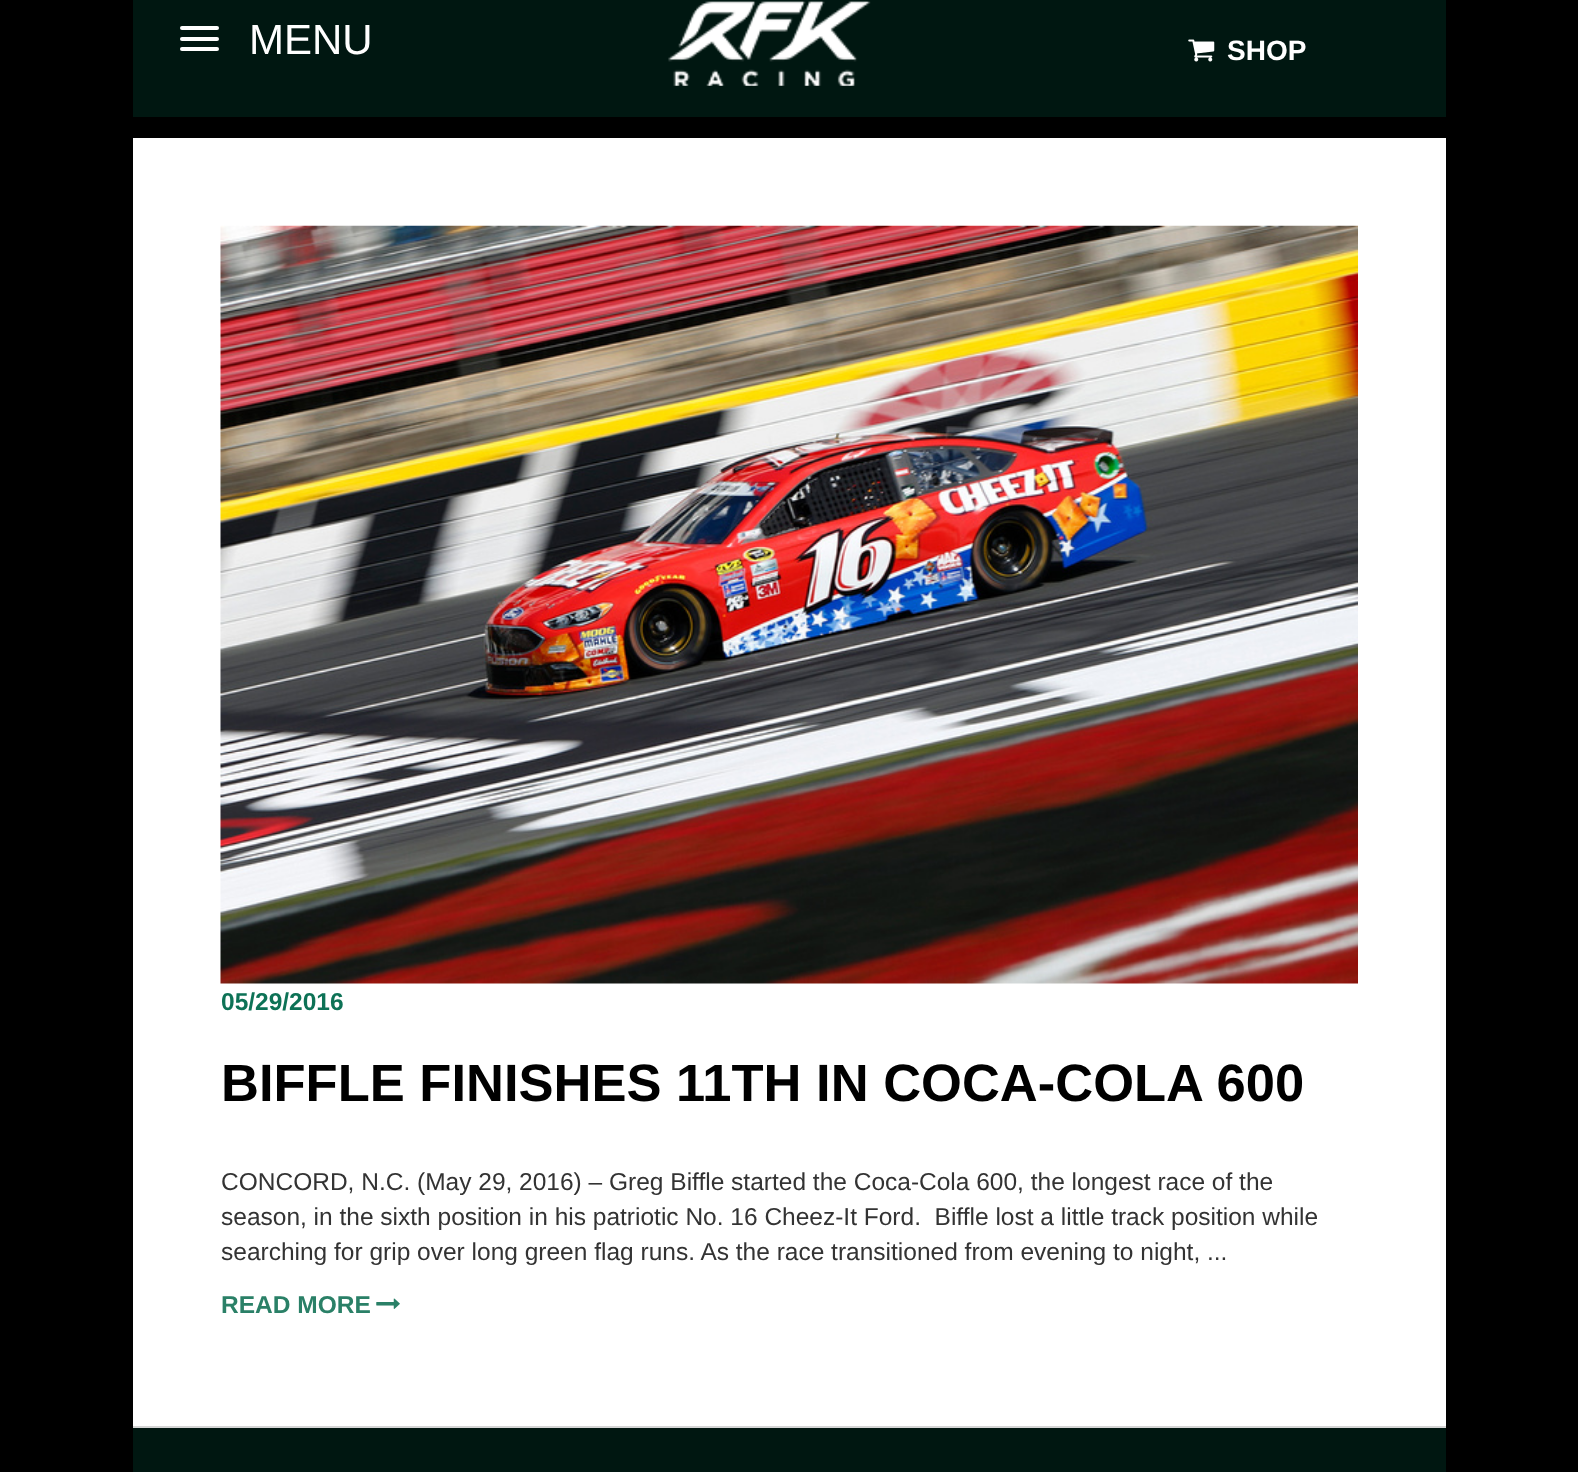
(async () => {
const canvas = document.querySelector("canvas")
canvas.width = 1578
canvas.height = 1472
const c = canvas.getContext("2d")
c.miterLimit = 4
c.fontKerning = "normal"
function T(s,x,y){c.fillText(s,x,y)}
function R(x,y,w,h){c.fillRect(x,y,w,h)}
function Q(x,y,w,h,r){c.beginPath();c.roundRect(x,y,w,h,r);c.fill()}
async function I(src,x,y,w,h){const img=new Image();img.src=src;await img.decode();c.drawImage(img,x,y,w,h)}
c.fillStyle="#000"
R(0,0,1578,1472)
c.fillStyle="#001711"
R(133,0,1313,117)
c.fillStyle="#fff"
Q(180,26,39,4,2)
c.font="42px Liberation Sans"
T("MENU",249,54)
Q(180,37,39,4,2)
Q(180,47,39,4,2)
await I("1.png",668,1,203,85)
await I("2.png",1188,39,27,23)
c.font="bold 28px Liberation Sans"
T("SHOP",1227,60)
R(133,138,1313,1288)
c.fillStyle="#d5d5d5"
R(133,1426,1313,2)
await I("3.png",220,225,1138,759)
c.font="bold 24.5px Liberation Sans"
c.fillStyle="#0d7256"
T("05/29/2016",221,1010)
c.font="bold 52.5px Liberation Sans"
c.fillStyle="#000"
T("BIFFLE FINISHES 11TH IN COCA-COLA 600",221,1101)
c.font="24.5px Liberation Sans"
c.fillStyle="#333"
T("CONCORD, N.C. (May 29, 2016) – Greg Biffle started the Coca-Cola 600, the longest race of the",221,1190)
T("season, in the sixth position in his patriotic No. 16 Cheez-It Ford.  Biffle lost a little track position while",221,1225)
T("searching for grip over long green flag runs. As the race transitioned from evening to night, ...",221,1260)
c.font="bold 24.5px Liberation Sans"
c.fillStyle="#2a8067"
T("READ MORE",221,1313)
await I("4.png",376,1298,24,11)
c.fillStyle="#001711"
R(133,1428,1313,44)
})()
